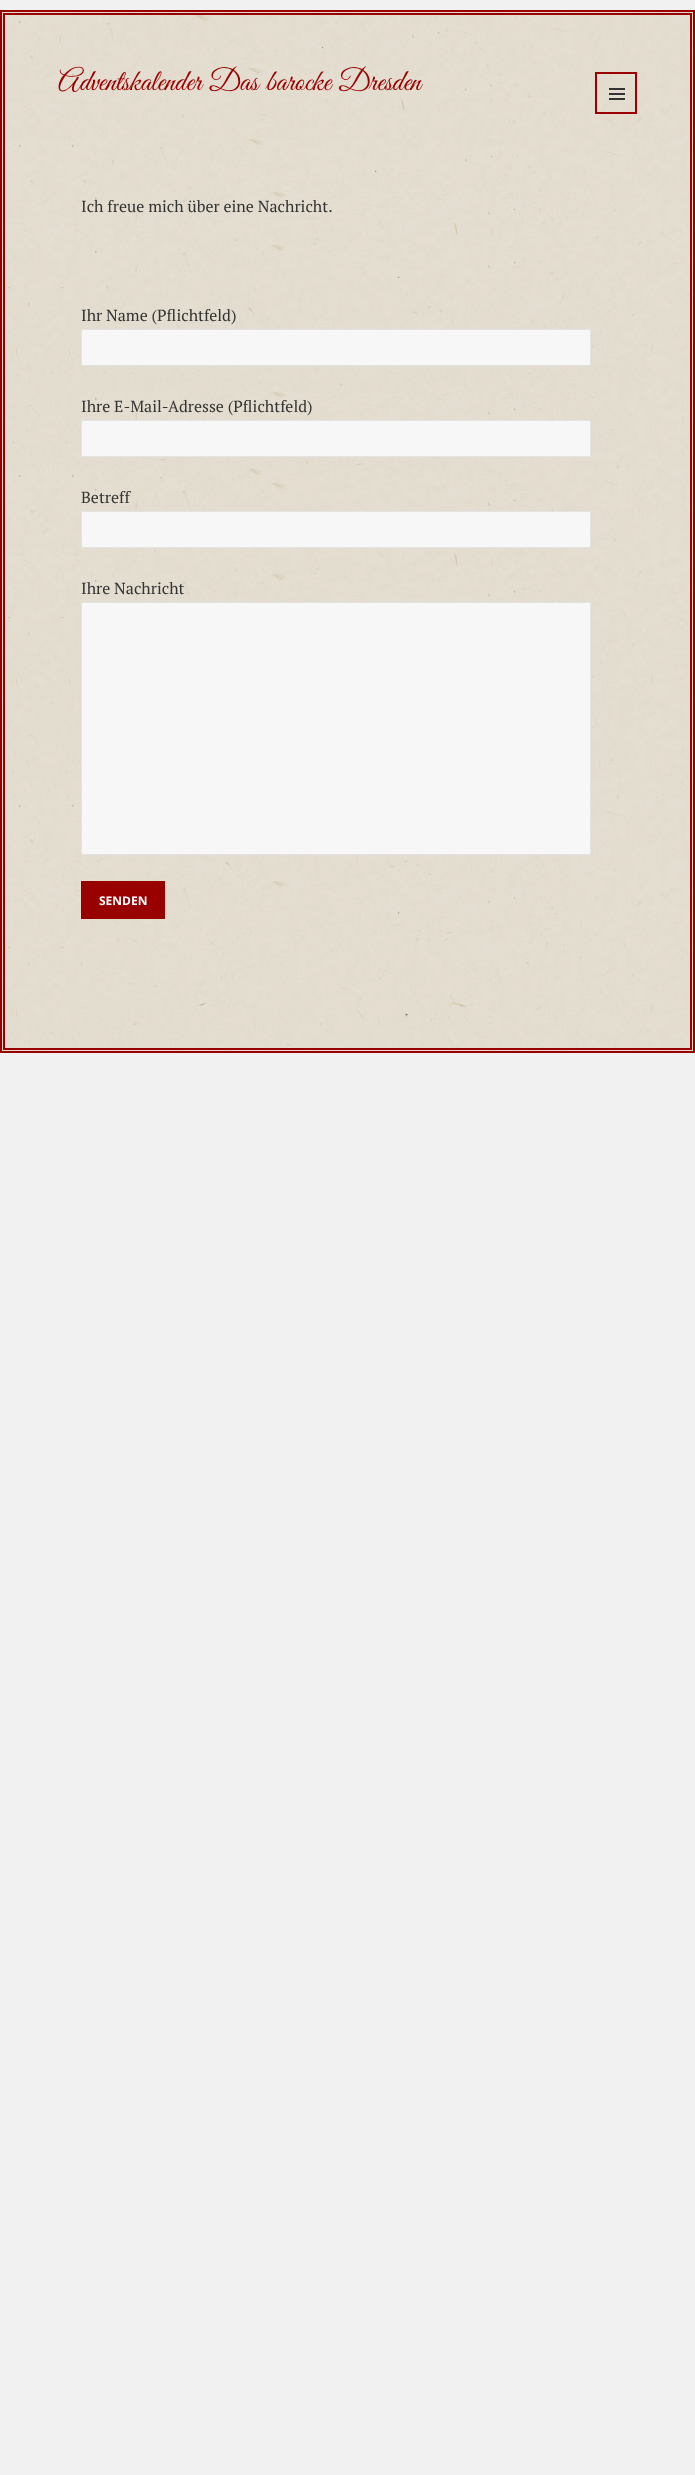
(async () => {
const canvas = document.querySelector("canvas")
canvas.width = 695
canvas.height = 2475
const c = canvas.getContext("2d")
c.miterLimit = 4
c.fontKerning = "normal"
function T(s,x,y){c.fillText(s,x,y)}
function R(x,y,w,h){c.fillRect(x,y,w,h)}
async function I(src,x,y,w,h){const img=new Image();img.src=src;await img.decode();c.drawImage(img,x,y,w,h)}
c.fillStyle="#f1f1f1"
R(0,0,695,2475)
await I("1.png",2,12,691,1039)
c.strokeStyle="#900"
c.lineWidth=2
c.strokeRect(1,11,693,1041)
c.strokeRect(4,14,687,1035)
await I("2.png",5,15,685,124)
await I("3.png",60,68,515,30)
c.font="30px Great Vibes"
c.fillStyle="#900"
T("Adventskalender Das barocke Dresden",58,90)
c.strokeRect(596,73,40,40)
await I("4.png",609,88,16,12)
await I("5.png",5,139,685,909)
await I("6.png",58,139,579,856)
await I("7.png",81,192,508,28)
c.font="16px PT Serif"
c.fillStyle="#333"
T("Ich freue mich über eine Nachricht.",81,212)
await I("8.png",81,245,510,84)
T("Ihr Name (Pflichtfeld)",81,321)
c.fillStyle="#f7f7f7"
c.beginPath()
c.rect(81.5,329.5,509,36)
c.fill()
c.strokeStyle="#e3e3e3"
c.lineWidth=1
c.stroke()
await I("9.png",81,392,505,28)
c.fillStyle="#333"
T("Ihre E-Mail-Adresse (Pflichtfeld)",81,412)
c.fillStyle="#f7f7f7"
c.beginPath()
c.rect(81.5,420.5,509,36)
c.fill()
c.stroke()
await I("10.png",83,483,508,28)
c.fillStyle="#333"
T("Betreff",81,503)
c.fillStyle="#f7f7f7"
c.beginPath()
c.rect(81.5,511.5,509,36)
c.fill()
c.stroke()
await I("11.png",81,574,510,28)
c.fillStyle="#333"
T("Ihre Nachricht",81,594)
c.fillStyle="#f7f7f7"
c.beginPath()
c.rect(81.5,602.5,509,252)
c.fill()
c.stroke()
await I("12.png",165,881,421,38)
c.fillStyle="#900"
R(81,881,84,38)
c.font="bold 12px Noto Sans"
c.fillStyle="#fff"
T("SENDEN",99,905)
})()
